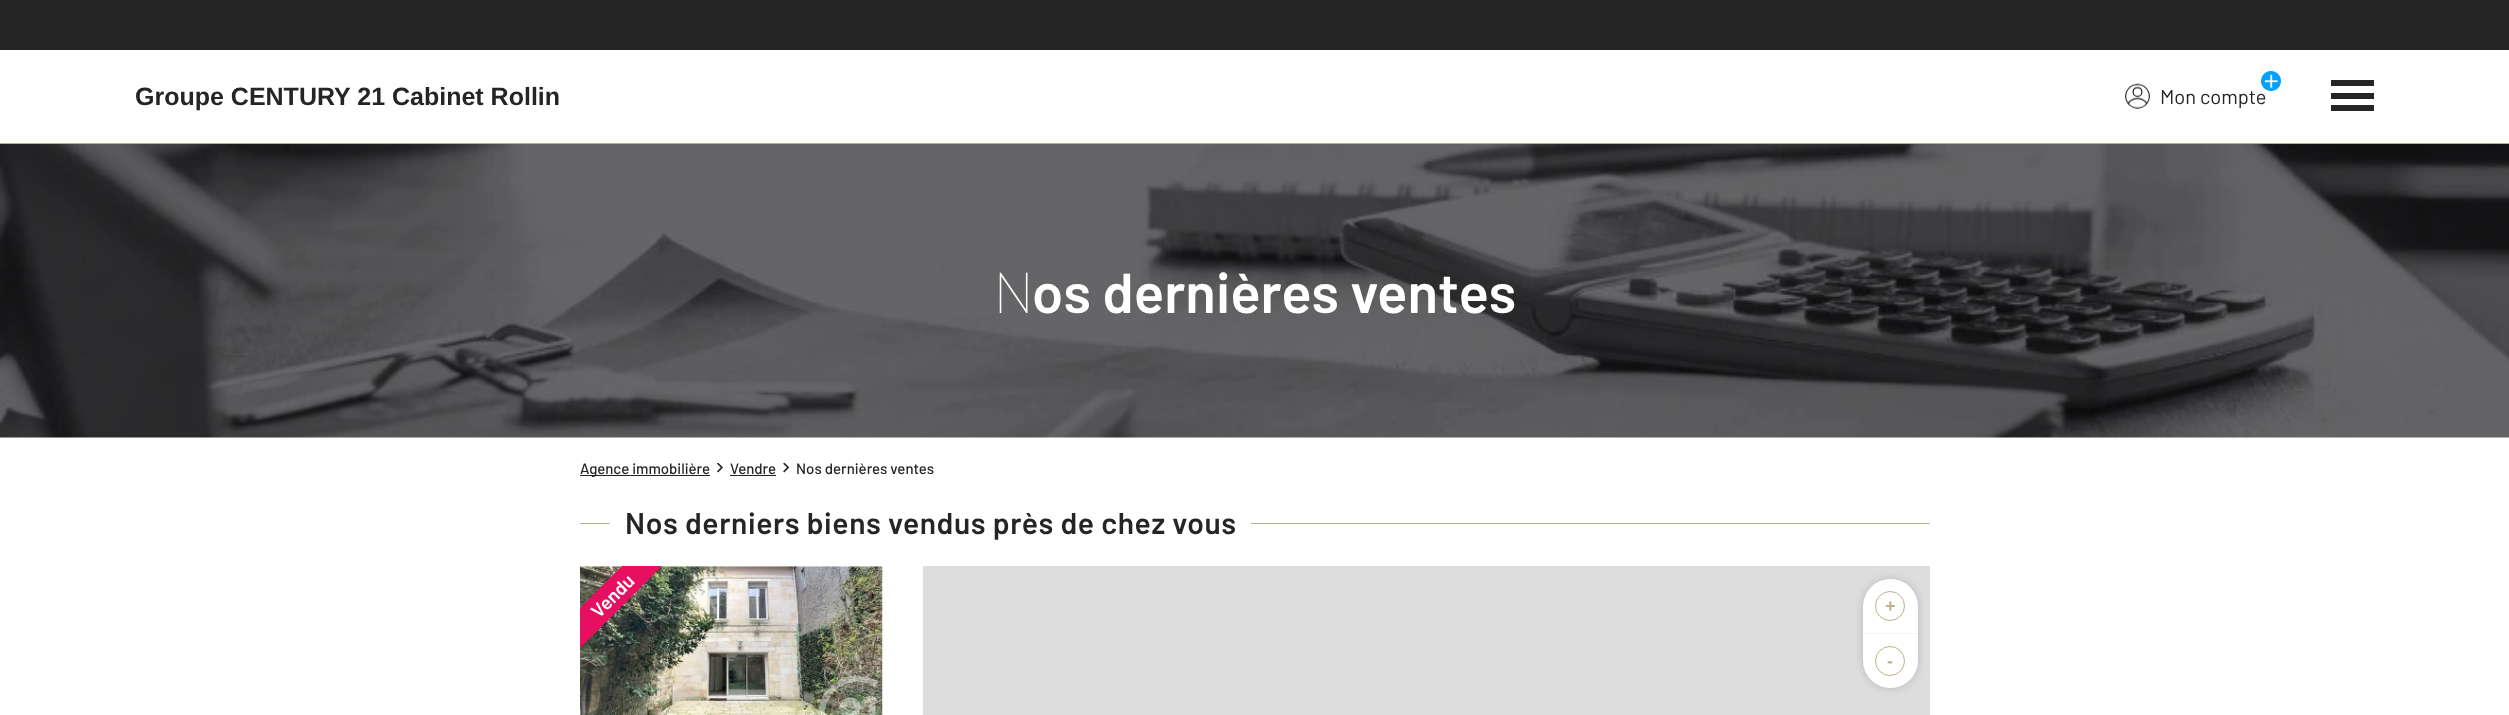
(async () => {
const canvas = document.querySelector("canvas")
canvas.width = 2509
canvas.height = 715
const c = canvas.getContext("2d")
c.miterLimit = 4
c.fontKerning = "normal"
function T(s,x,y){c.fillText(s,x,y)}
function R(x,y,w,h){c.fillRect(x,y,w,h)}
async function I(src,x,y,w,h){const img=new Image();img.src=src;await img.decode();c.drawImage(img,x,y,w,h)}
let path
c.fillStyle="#fff"
R(0,0,2509,715)
c.fillStyle="#252526"
R(0,0,2509,50)
c.fillStyle="#beaf87"
R(0,143,2509,1)
c.font="bold 25px Liberation Sans"
c.fillStyle="#252526"
T("Groupe CENTURY 21 Cabinet Rollin",135,105)
c.font="20px Barlow"
T("Mon compte",2160,104)
await I("1.png",2261,71,20,20)
await I("2.png",2125,83,25,26)
R(2331,105,43,6)
R(2331,80,43,6)
R(2331,93,43,6)
await I("3.png",0,144,2509,294)
c.font="100 56.25px Noto Sans"
c.fillStyle="#fff"
T("N",994,313)
c.font="600 56.25px Barlow"
T("os dernières ventes",1032,313)
c.fillStyle="#252526"
R(580,475,130,1)
c.font="500 15px Barlow"
T("Agence immobilière",580,474)
await I("4.png",717,463,6,10)
T("Vendre",730,474)
R(730,475,46,1)
await I("5.png",783,463,7,10)
T("Nos dernières ventes",796,474)
c.fillStyle="#beaf87"
R(580,523,30,1)
c.letterSpacing="0.6px"
c.font="600 30px Barlow"
c.fillStyle="#252526"
T("Nos derniers biens vendus près de chez vous",625,534)
c.fillStyle="#beaf87"
R(1251,523,679,1)
await I("6.png",580,566,303,149)
c.save()
c.beginPath()
c.rect(580,566,175,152)
c.clip()
c.fillStyle="#e70f5f"
path = new Path2D("M514 674l177-177l20 20l-177 177z")
c.fill(path)
c.restore()
c.letterSpacing="0px"
c.font="600 19px Barlow"
c.fillStyle="#fff"
c.save()
c.translate(599,619)
c.rotate(-45 * Math.PI / 180)
c.fillText("Vendu",0,0)
c.restore()
c.fillStyle="#ddd"
R(923,566,1007,149)
c.fillStyle="#00000029"
c.filter="blur(4px)"
c.beginPath()
c.roundRect(1863,579,55,109,27.5)
c.fill()
c.filter="none"
c.fillStyle="#fff"
c.beginPath()
c.roundRect(1863,579,55,54,[27.5,27.5,0,0])
c.fill()
c.beginPath()
c.arc(1890,606,14.5,0,7)
c.strokeStyle="#beaf87"
c.stroke()
c.font="bold 18px Liberation Sans"
c.fillStyle="#beaf87"
T("+",1885,612)
c.fillStyle="#fff"
c.beginPath()
c.roundRect(1863,634,55,54,[0,0,27.5,27.5])
c.fill()
c.fillStyle="#f4f4f4"
R(1863,633,55,1)
c.beginPath()
c.arc(1890,661,14.5,0,7)
c.stroke()
c.fillStyle="#beaf87"
T("-",1887,667)
})()
